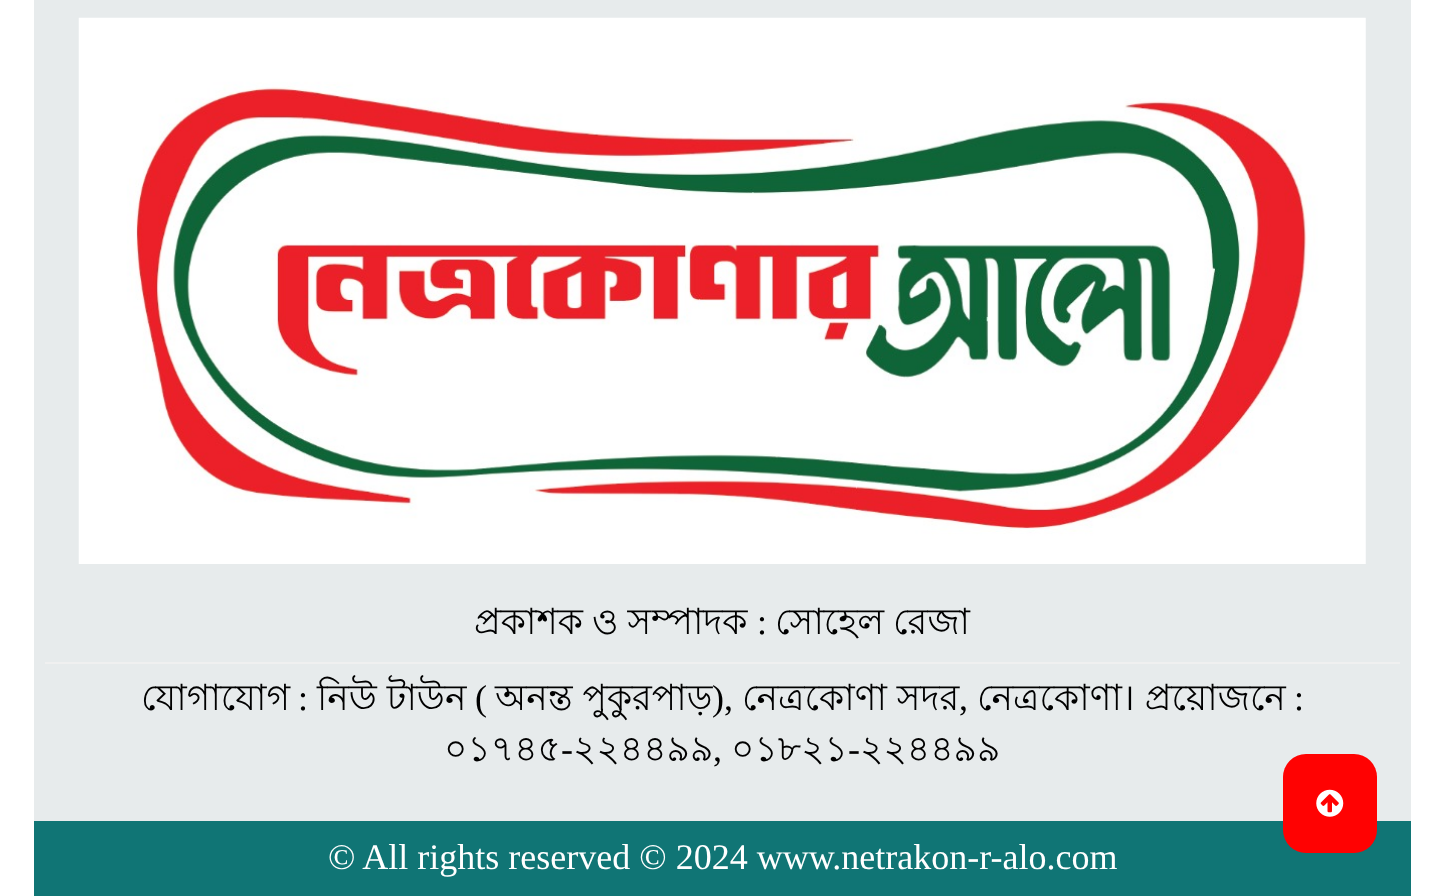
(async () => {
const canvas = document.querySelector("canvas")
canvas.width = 1444
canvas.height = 896
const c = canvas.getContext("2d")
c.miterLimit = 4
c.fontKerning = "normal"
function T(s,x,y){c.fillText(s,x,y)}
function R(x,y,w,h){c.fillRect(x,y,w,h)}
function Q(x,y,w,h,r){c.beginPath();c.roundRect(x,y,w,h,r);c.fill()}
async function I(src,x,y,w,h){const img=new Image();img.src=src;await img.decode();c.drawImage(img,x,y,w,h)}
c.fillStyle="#fff"
R(0,0,1444,896)
c.fillStyle="#e7ebec"
R(34,0,1377,821)
await I("1.png",78,17,1288,547)
c.fillStyle="#f0f0f0"
R(45,662,1355,2)
c.wordSpacing="-1px"
c.font="36px Lohit Bengali"
c.fillStyle="#000"
T("প্রকাশক ও সম্পাদক",474,634)
c.wordSpacing="0px"
c.font="36px Liberation Serif"
T(":",757,634)
c.wordSpacing="-1px"
c.font="36px Lohit Bengali"
T("সোহেল রেজা",775,634)
c.wordSpacing="0px"
T("যোগাযোগ",141,710)
c.font="36px Liberation Serif"
T(":",298,710)
c.font="36px Lohit Bengali"
T("নিউ টাউন",317,710)
c.font="36px Liberation Serif"
T("(",475,710)
c.font="36px Lohit Bengali"
T("অনন্ত পুকুরপাড়",495,710)
c.font="36px Liberation Serif"
T("),",712,710)
c.font="36px Lohit Bengali"
T("নেত্রকোণা সদর",742,710)
c.font="36px Liberation Serif"
T(",",959,710)
c.font="36px Lohit Bengali"
T("নেত্রকোণা। প্রয়োজনে",977,710)
c.font="36px Liberation Serif"
T(":",1294,710)
c.font="36px Lohit Bengali"
T("০১৭৪৫",444,761)
c.font="36px Liberation Serif"
T("-",561,761)
c.font="36px Lohit Bengali"
T("২২৪৪৯৯",573,761)
T("০১৮২১",731,761)
c.font="36px Liberation Serif"
T("-",848,761)
c.font="36px Lohit Bengali"
T("২২৪৪৯৯",860,761)
c.font="36px Liberation Serif"
T(",",713,761)
c.fillStyle="#107575"
R(34,821,1377,75)
c.fillStyle="#ff0202"
Q(1283,754,94,99,23)
await I("2.png",1316,789,28,28)
c.fillStyle="#fff"
T("© All rights reserved © 2024 www.netrakon-r-alo.com",328,869)
})()
